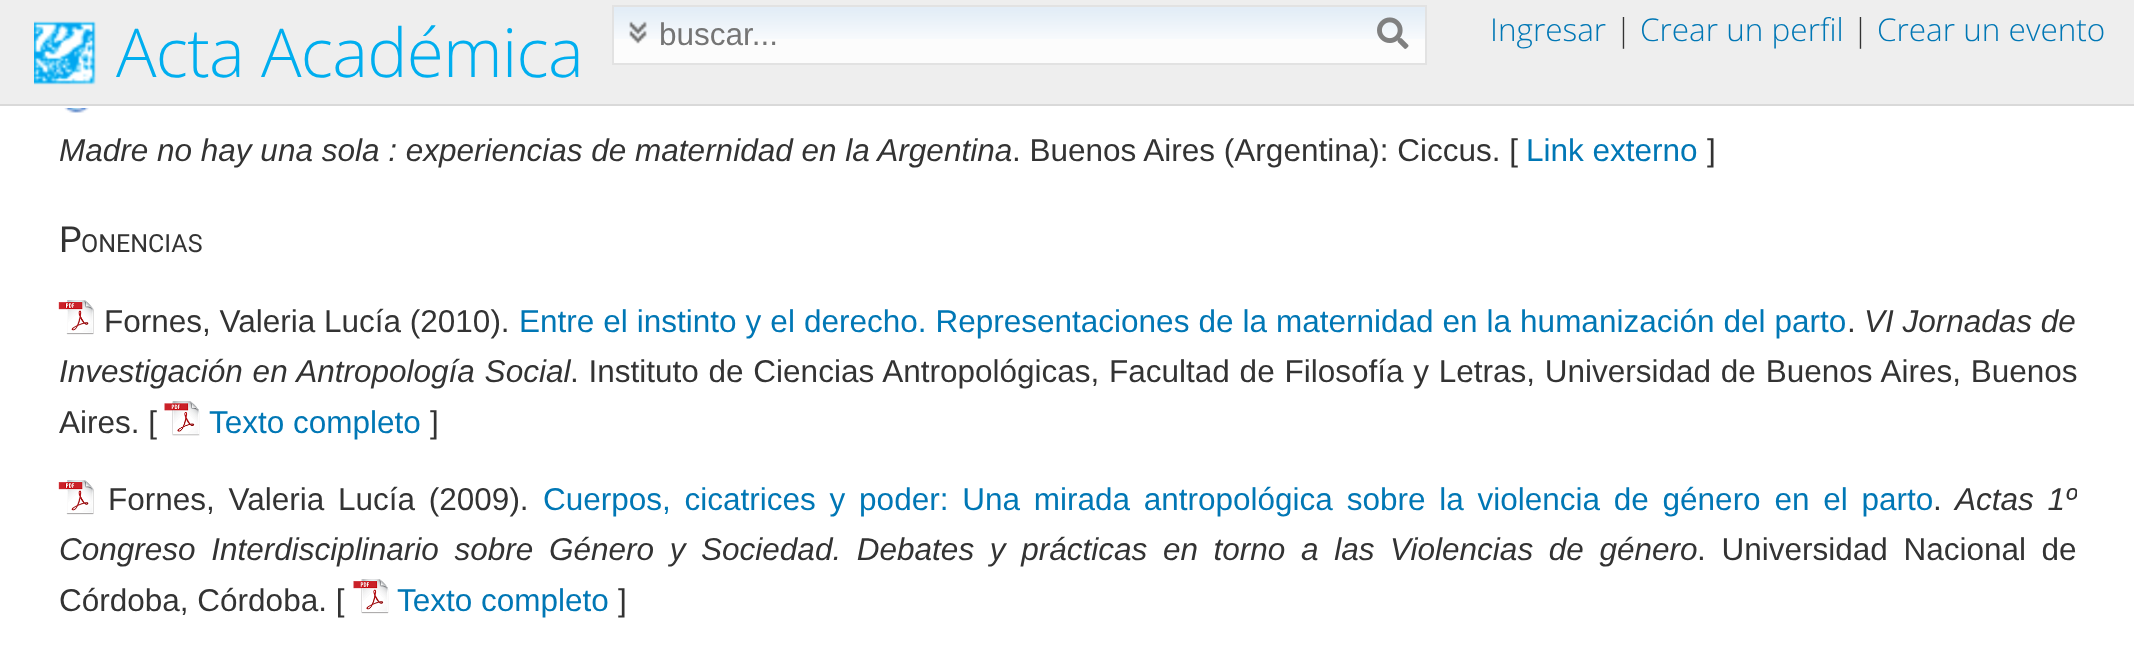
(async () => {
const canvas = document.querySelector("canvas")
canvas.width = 2134
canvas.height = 650
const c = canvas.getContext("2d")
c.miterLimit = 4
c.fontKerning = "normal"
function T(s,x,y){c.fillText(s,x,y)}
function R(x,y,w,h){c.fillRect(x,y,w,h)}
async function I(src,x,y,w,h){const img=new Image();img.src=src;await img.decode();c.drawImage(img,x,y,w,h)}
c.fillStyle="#fff"
R(0,0,2134,650)
c.fillStyle="#d9d9d9"
R(0,104,2134,2)
c.fillStyle="#eee"
R(0,0,2134,104)
await I("1.png",34,21,62,64)
c.letterSpacing="-0.7px"
c.font="300 67.5px Open Sans"
c.fillStyle="#00aeef"
T("Acta Académica",116,77)
c.fillStyle="#fcfcfc"
R(614,39,811,24)
await I("3.png",614,7,811,32)
c.strokeStyle="#e2e2e2"
c.lineWidth=2
c.strokeRect(613,6,813,58)
await I("2.png",629,21,18,23)
c.letterSpacing="0px"
c.font="31.5px Liberation Sans"
c.fillStyle="#757575"
T("buscar...",659,45)
await I("4.png",1377,17,32,32)
c.font="300 31.5px Open Sans"
c.fillStyle="#0077b5"
T("Ingresar",1490,41)
c.fillStyle="#333"
T("|",1615,41)
c.fillStyle="#0077b5"
T("Crear un perfil",1640,41)
c.fillStyle="#333"
T("|",1852,41)
c.fillStyle="#0077b5"
T("Crear un evento",1877,41)
await I("5.png",64,108,25,5)
c.font="italic 31.5px Liberation Sans"
c.fillStyle="#333"
T("Madre no hay una sola : experiencias de maternidad en la Argentina",59,161)
c.font="31.5px Liberation Sans"
T(". Buenos Aires (Argentina): Ciccus. [",1012,161)
c.fillStyle="#0077b5"
T("Link externo",1526,161)
c.fillStyle="#333"
T("]",1707,161)
c.font="36px Roboto"
T("P",59,252)
c.font="25px Roboto"
T("ONENCIAS",81,252)
await I("6.png",58,300,36,35)
c.font="31.5px Liberation Sans"
T("Fornes, Valeria Lucía (2010).",104,332)
c.wordSpacing="0.25px"
c.fillStyle="#0077b5"
T("Entre el instinto y el derecho. Representaciones de la maternidad en la humanización del parto",519,332)
c.wordSpacing="0px"
c.fillStyle="#333"
T(".",1847,332)
c.font="italic 31.5px Liberation Sans"
T("VI Jornadas de",1864,332)
c.wordSpacing="1px"
T("Investigación en Antropología Social",59,382)
c.font="31.5px Liberation Sans"
T(". Instituto de Ciencias Antropológicas, Facultad de Filosofía y Letras, Universidad de Buenos Aires, Buenos",570,382)
c.wordSpacing="0px"
T("Aires. [",59,433)
await I("7.png",164,401,36,35)
c.fillStyle="#0077b5"
T("Texto completo",209,433)
c.fillStyle="#333"
T("]",430,433)
await I("8.png",58,480,36,35)
c.wordSpacing="5px"
T("Fornes, Valeria Lucía (2009).",108,510)
c.fillStyle="#0077b5"
T("Cuerpos, cicatrices y poder: Una mirada antropológica sobre la violencia de género en el parto",543,510)
c.wordSpacing="0px"
c.fillStyle="#333"
T(".",1933,510)
c.save()
c.beginPath()
c.rect(59,0,2018,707)
c.clip()
c.wordSpacing="5px"
c.font="italic 31.5px Liberation Sans"
T("Actas 1º",1955,510)
c.restore()
c.wordSpacing="6.9px"
c.font="italic 31.5px Liberation Sans"
T("Congreso Interdisciplinario sobre Género y Sociedad. Debates y prácticas en torno a las Violencias de género",59,560)
c.font="31.5px Liberation Sans"
T(". Universidad Nacional de",1697,560)
c.wordSpacing="0px"
T("Córdoba, Córdoba. [",59,611)
await I("9.png",353,579,36,35)
c.fillStyle="#0077b5"
T("Texto completo",397,611)
c.fillStyle="#333"
T("]",618,611)
})()
